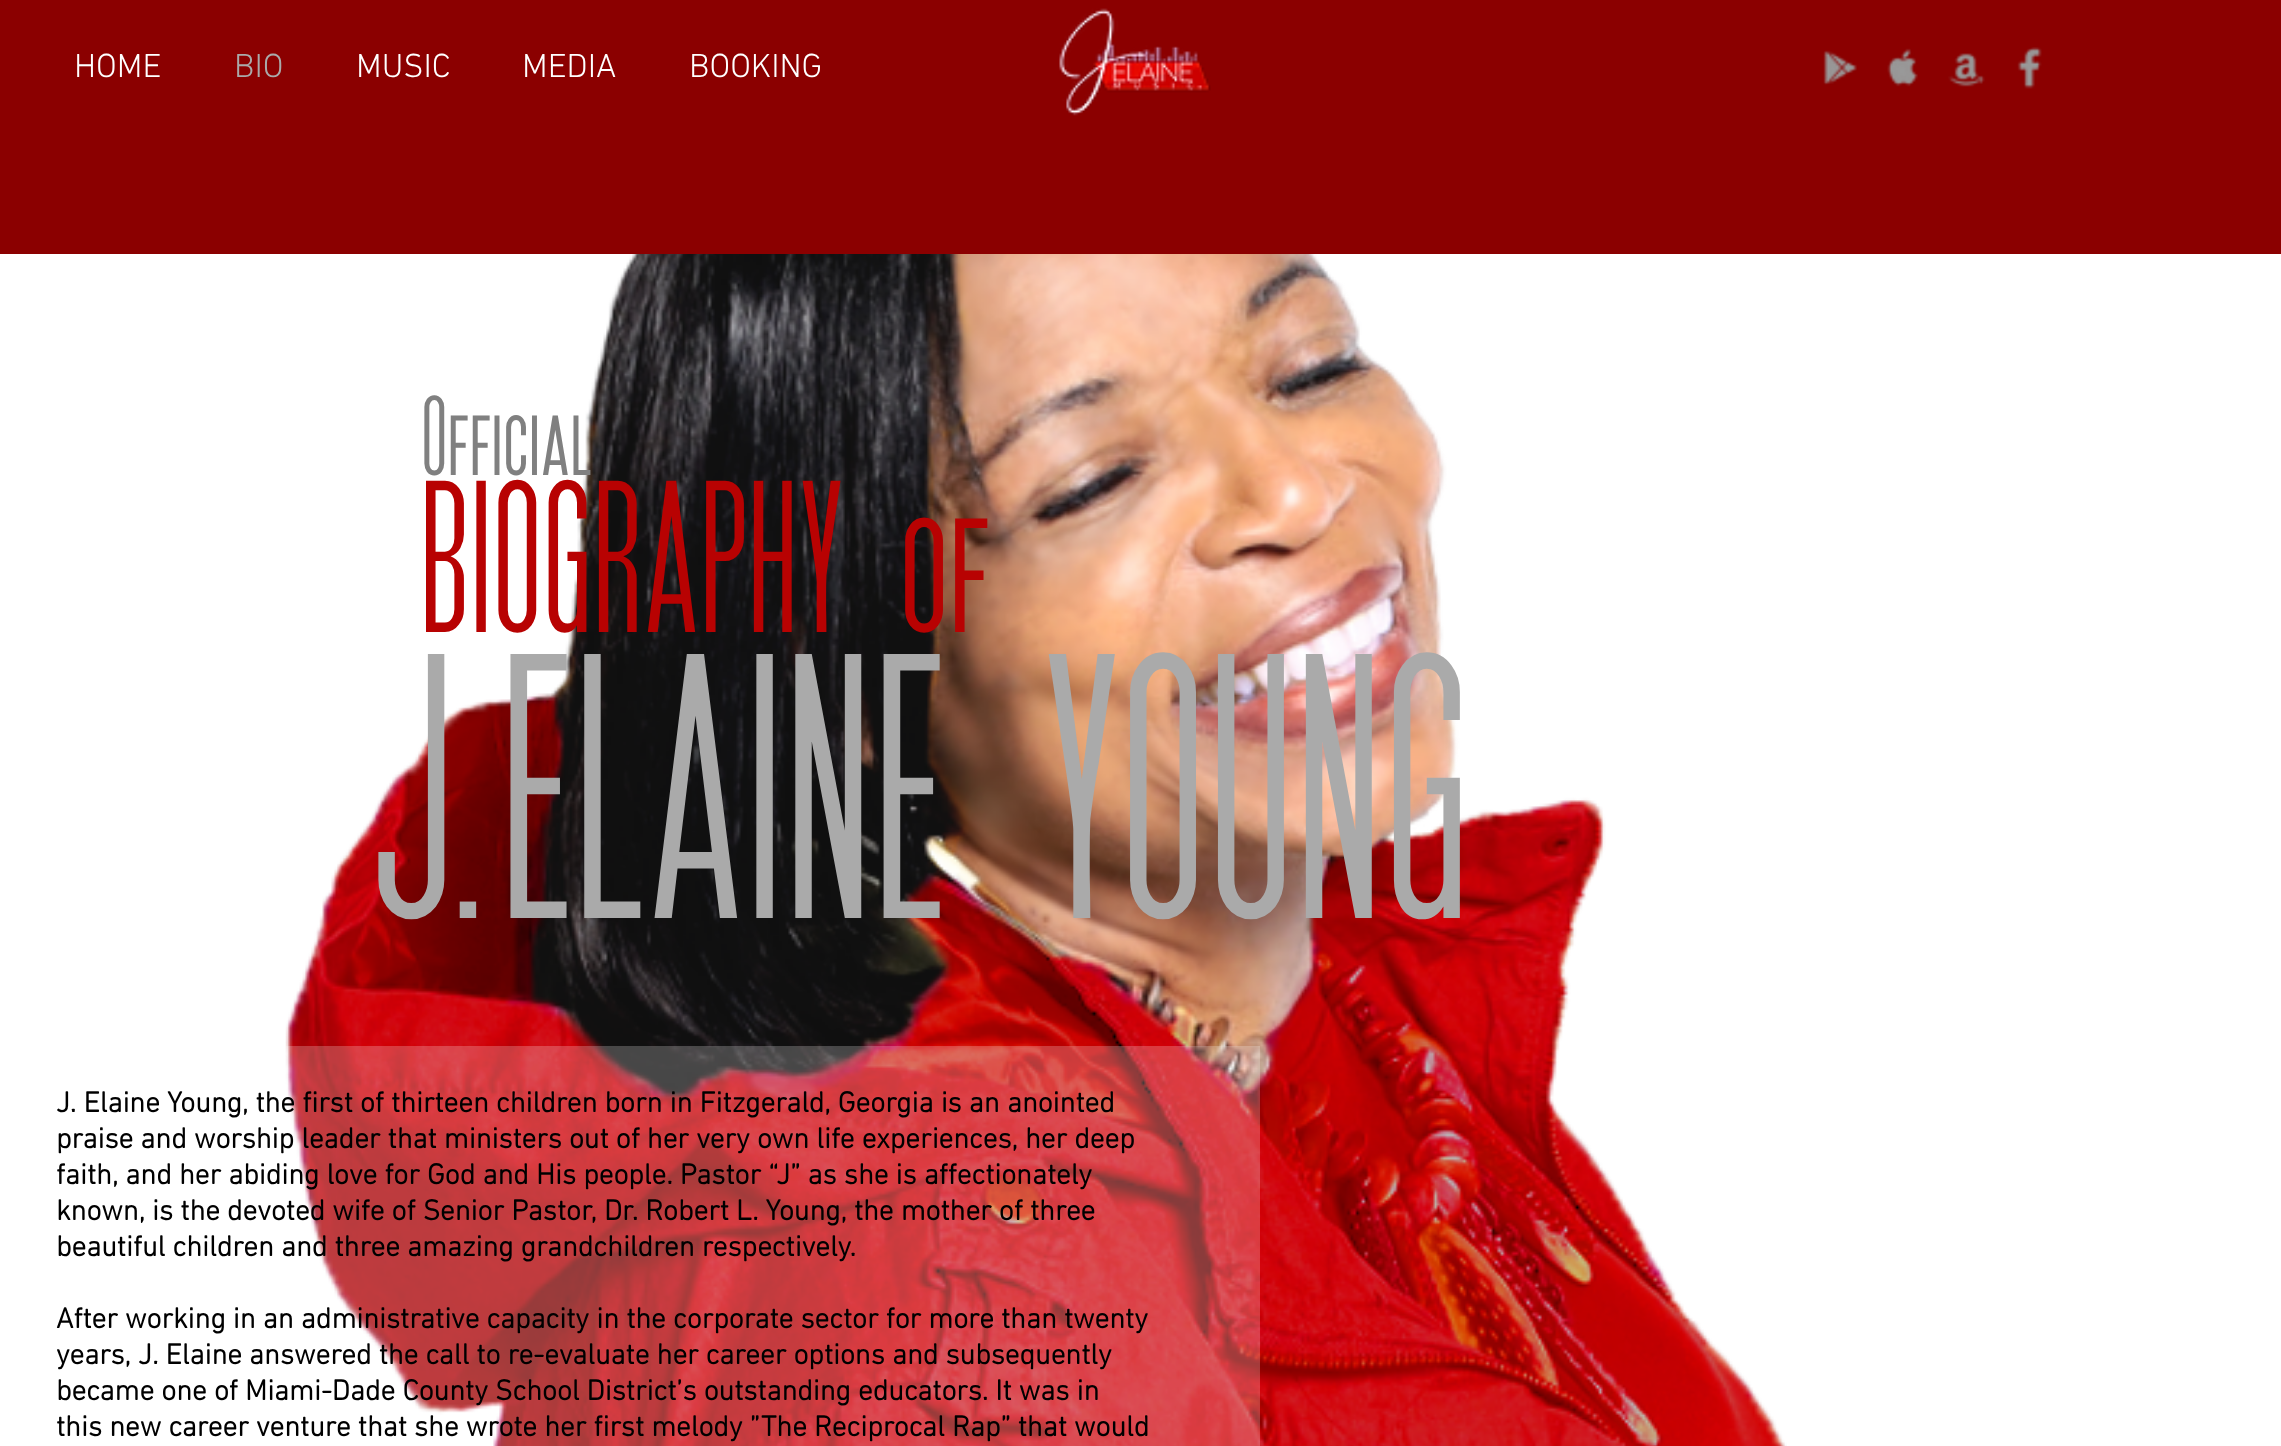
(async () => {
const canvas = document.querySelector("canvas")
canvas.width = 2281
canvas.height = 1446
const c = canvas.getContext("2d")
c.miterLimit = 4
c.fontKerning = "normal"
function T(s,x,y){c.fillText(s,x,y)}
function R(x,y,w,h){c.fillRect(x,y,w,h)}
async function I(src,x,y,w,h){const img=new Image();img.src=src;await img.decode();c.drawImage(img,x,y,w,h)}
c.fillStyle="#fff"
R(0,0,2281,1446)
c.fillStyle="#8b0000"
R(0,0,2281,254)
c.font="300 34px 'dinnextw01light'"
c.fillStyle="#fff"
T("HOME",74,77)
c.fillStyle="#aaa"
T("BIO",234,77)
c.fillStyle="#fff"
T("MUSIC",356,77)
T("MEDIA",522,77)
T("BOOKING",689,77)
await I("1.png",1059,8,152,108)
await I("2.png",1823,50,34,35)
await I("3.png",1887,48,31,39)
await I("4.png",1948,53,37,34)
await I("5.png",2017,47,25,42)
await I("6.png",285,254,1502,1192)
c.letterSpacing="3.5px"
c.font="119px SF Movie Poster"
c.fillStyle="#808080"
T("Official",423,475)
c.letterSpacing="6.75px"
c.font="227px SF Movie Poster"
c.fillStyle="#b80202"
T("BIOGRAPHY of",423,632)
c.letterSpacing="11.9px"
c.font="396px SF Movie Poster"
c.fillStyle="#aaa"
T("J.ELAINE YOUNG",378,918)
c.fillStyle="#ffffff3b"
R(286,1046,974,400)
c.letterSpacing="0px"
c.font="bold 29.25px 'dinnextw01light'"
c.fillStyle="#000"
T("J. Elaine Young, the first of thirteen children born in Fitzgerald, Georgia is an anointed",56,1112)
T("praise and worship leader that ministers out of her very own life experiences, her deep",56,1148)
T("faith, and her abiding love for God and His people. Pastor “J” as she is affectionately",56,1184)
T("known, is the devoted wife of Senior Pastor, Dr. Robert L. Young, the mother of three",56,1220)
T("beautiful children and three amazing grandchildren respectively.",56,1256)
T("After working in an administrative capacity in the corporate sector for more than twenty",56,1328)
T("years, J. Elaine answered the call to re-evaluate her career options and subsequently",56,1364)
T("became one of Miami-Dade County School District’s outstanding educators. It was in",56,1400)
T("this new career venture that she wrote her first melody ”The Reciprocal Rap” that would",56,1436)
})()
